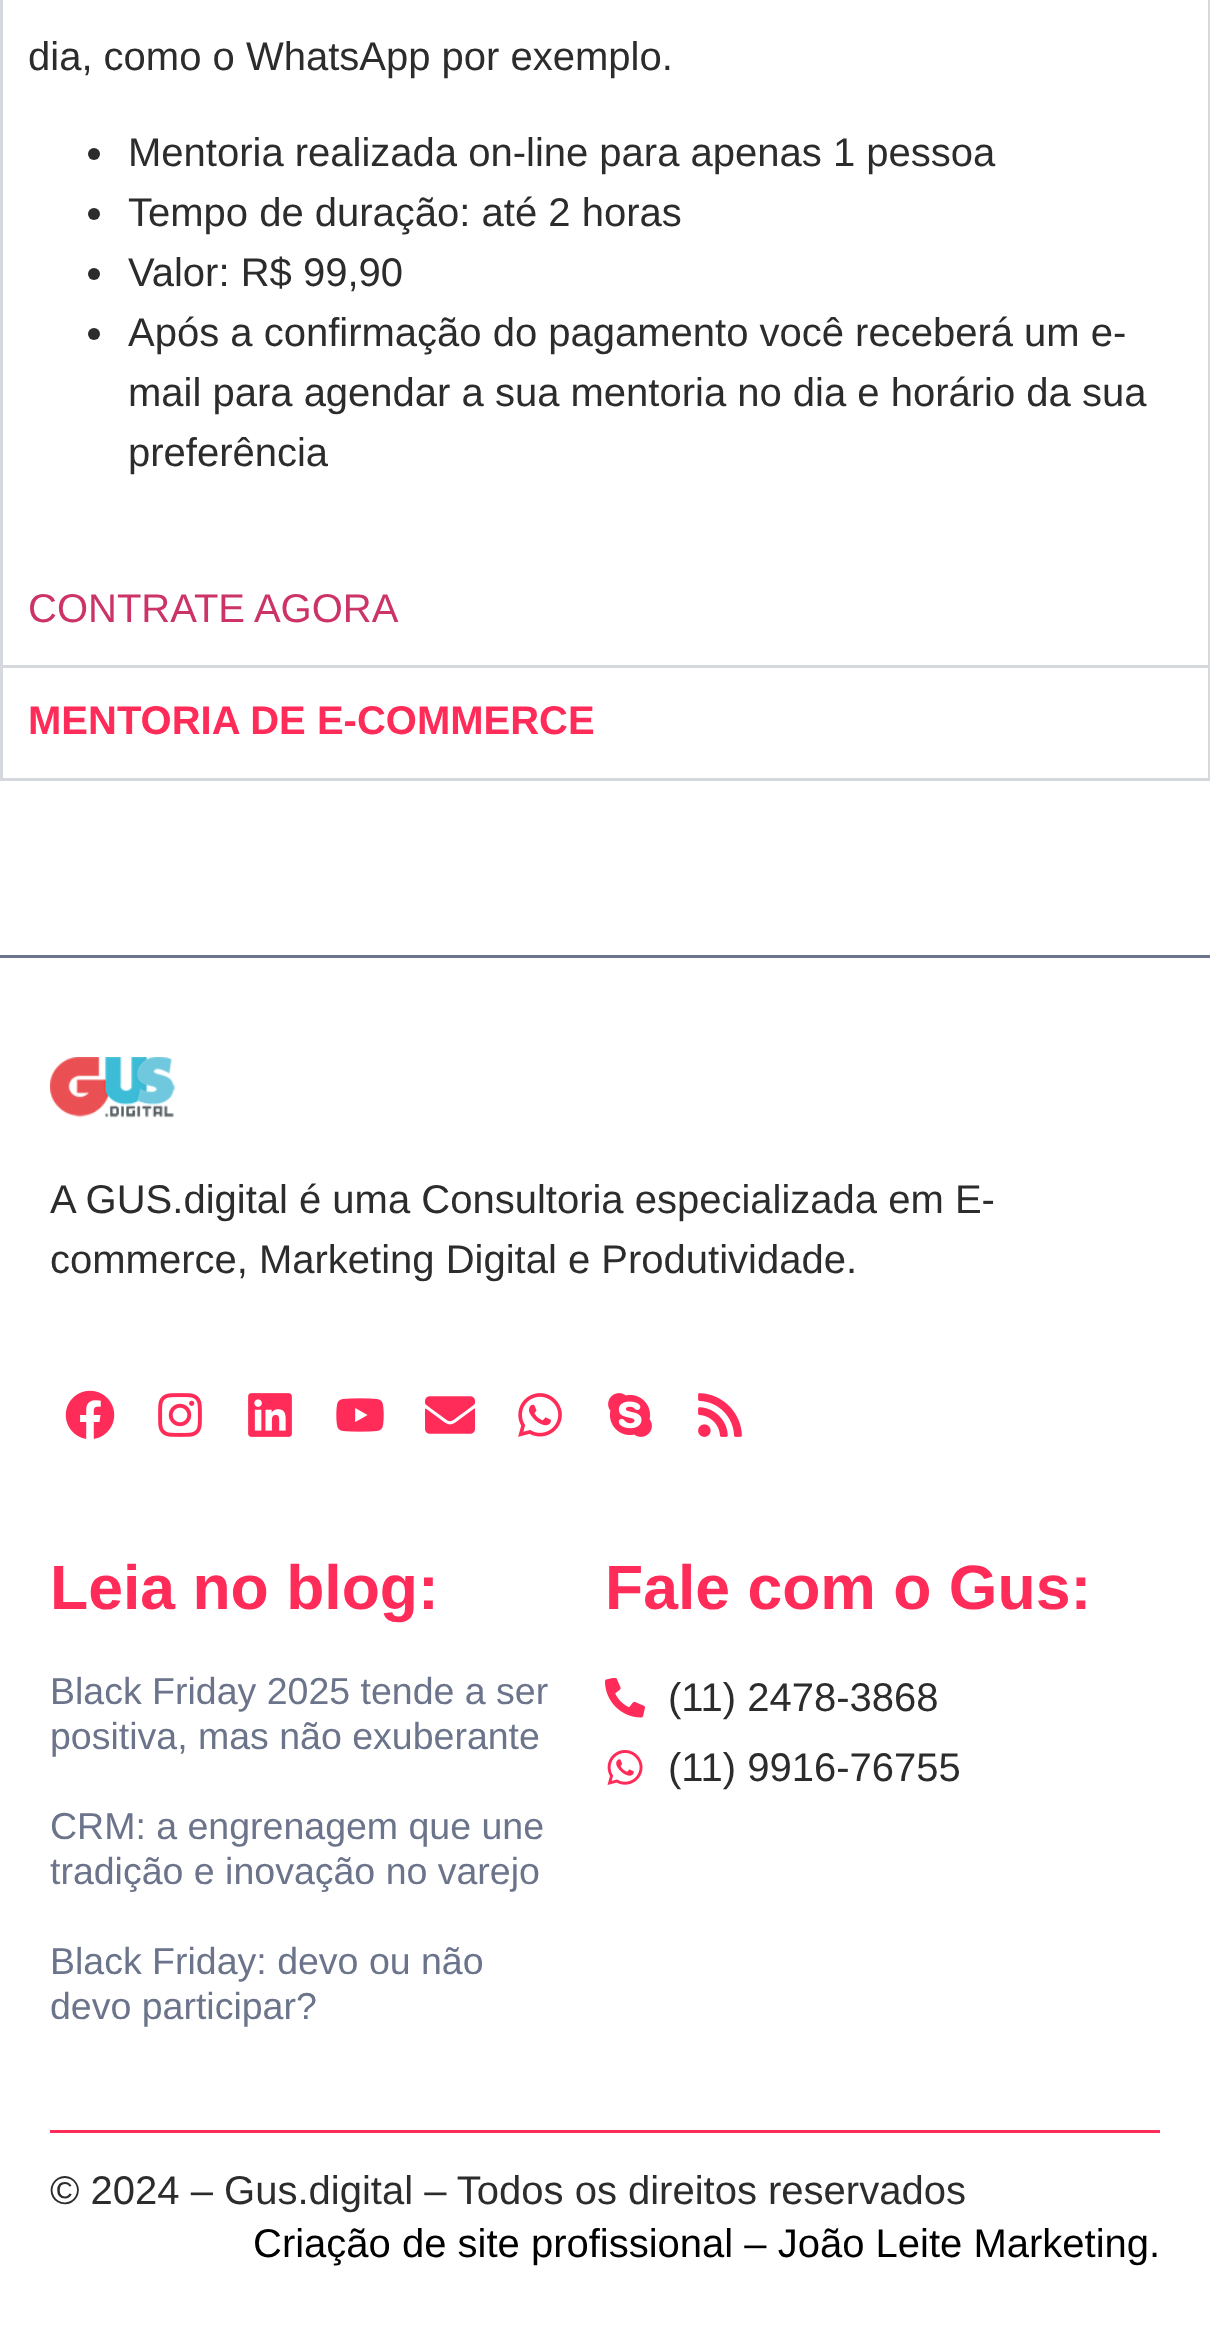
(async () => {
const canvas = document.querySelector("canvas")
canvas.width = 1210
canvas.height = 2341
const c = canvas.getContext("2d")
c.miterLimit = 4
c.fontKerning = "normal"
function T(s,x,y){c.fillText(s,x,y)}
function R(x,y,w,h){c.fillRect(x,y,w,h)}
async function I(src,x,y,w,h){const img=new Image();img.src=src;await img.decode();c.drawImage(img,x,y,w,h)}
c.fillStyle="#fff"
R(0,0,1210,2341)
c.fillStyle="#d5d8dc"
R(0,778,1210,3)
R(1208,0,2,665)
R(0,0,3,665)
c.font="40px Liberation Sans"
c.fillStyle="#2c2c2c"
T("dia, como o WhatsApp por exemplo.",28,70)
c.beginPath()
c.arc(94,154,6,0,7)
c.fill()
T("Mentoria realizada on-line para apenas 1 pessoa",128,166)
c.beginPath()
c.arc(94,214,6,0,7)
c.fill()
T("Tempo de duração: até 2 horas",128,226)
c.beginPath()
c.arc(94,274,6,0,7)
c.fill()
T("Valor: R$ 99,90",128,286)
c.beginPath()
c.arc(94,334,6,0,7)
c.fill()
T("Após a confirmação do pagamento você receberá um e-",128,346)
T("mail para agendar a sua mentoria no dia e horário da sua",128,406)
T("preferência",128,466)
c.fillStyle="#c36"
T("CONTRATE AGORA",28,622)
c.fillStyle="#d5d8dc"
R(0,665,1210,3)
R(1208,665,2,113)
R(0,665,3,113)
c.font="bold 40px Liberation Sans"
c.fillStyle="#ff2b58"
T("MENTORIA DE E-COMMERCE",28,734)
c.fillStyle="#6b748b"
R(0,955,1210,3)
await I("1.png",50,1057,126,61)
c.font="40px Liberation Sans"
c.fillStyle="#2c2c2c"
T("A GUS.digital é uma Consultoria especializada em E-",50,1213)
T("commerce, Marketing Digital e Produtividade.",50,1273)
await I("2.png",65,1390,50,49)
await I("3.png",158,1393,44,44)
await I("4.png",248,1393,44,44)
await I("5.png",336,1398,48,34)
await I("6.png",425,1396,50,38)
await I("7.png",518,1393,44,44)
await I("8.png",608,1393,44,44)
await I("9.png",698,1393,44,44)
c.font="bold 62.5px Liberation Sans"
c.fillStyle="#ff2b58"
T("Leia no blog:",50,1609)
c.font="37.5px Liberation Sans"
c.fillStyle="#6b748b"
T("Black Friday 2025 tende a ser",50,1704)
T("positiva, mas não exuberante",50,1749)
T("CRM: a engrenagem que une",50,1839)
T("tradição e inovação no varejo",50,1884)
T("Black Friday: devo ou não",50,1974)
T("devo participar?",50,2019)
c.font="bold 62.5px Liberation Sans"
c.fillStyle="#ff2b58"
T("Fale com o Gus:",605,1609)
await I("10.png",605,1678,40,40)
c.font="40px Liberation Sans"
c.fillStyle="#2c2c2c"
T("(11) 2478-3868",668,1711)
await I("11.png",607,1750,36,35)
T("(11) 9916-76755",668,1781)
c.fillStyle="#ff2b58"
R(50,2130,1110,3)
c.fillStyle="#2c2c2c"
T("© 2024 – Gus.digital – Todos os direitos reservados",50,2204)
c.fillStyle="#000"
T("Criação de site profissional – João Leite Marketing.",253,2257)
})()
